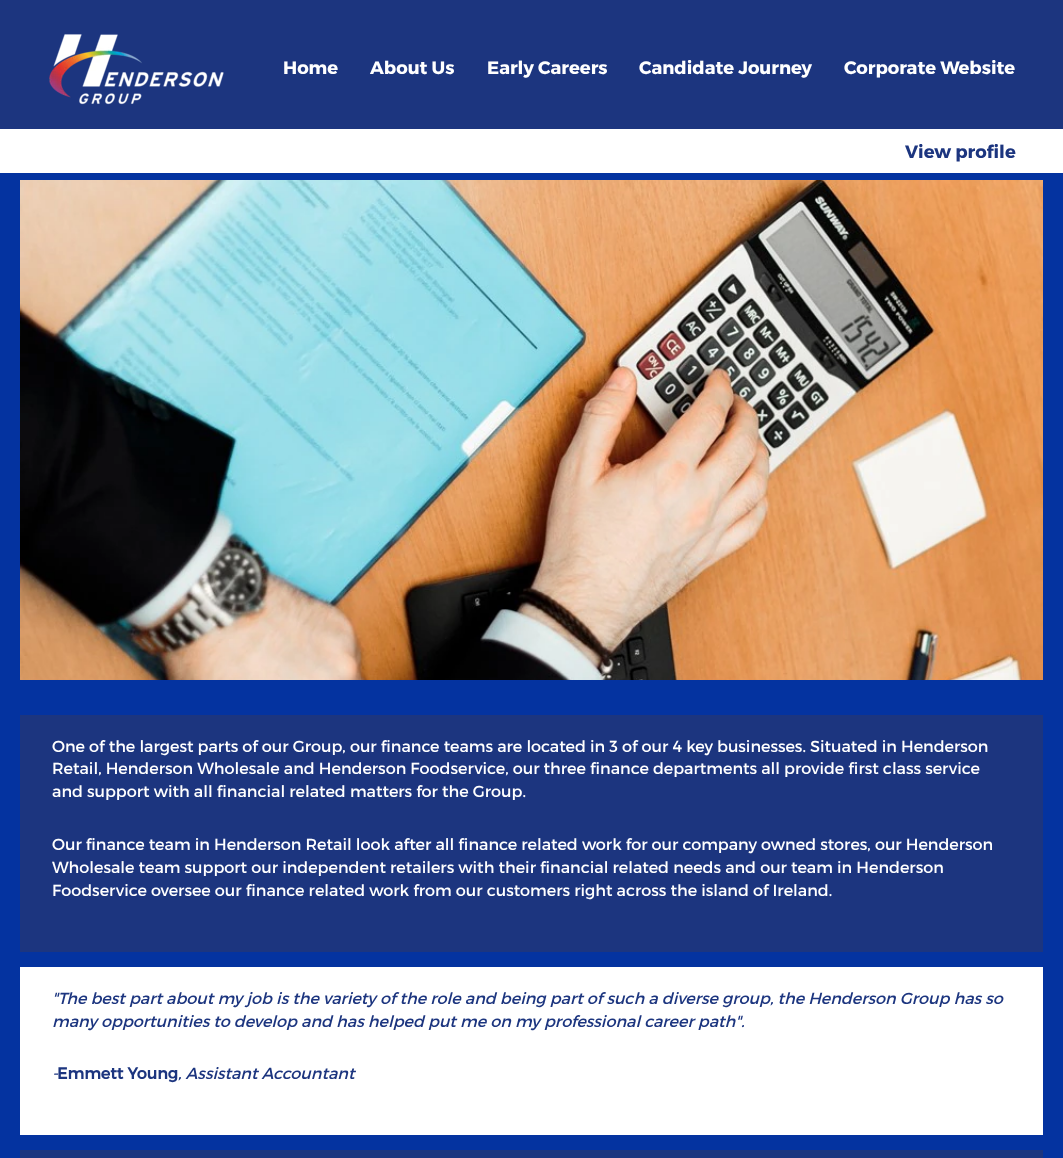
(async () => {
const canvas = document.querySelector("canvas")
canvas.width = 1063
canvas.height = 1158
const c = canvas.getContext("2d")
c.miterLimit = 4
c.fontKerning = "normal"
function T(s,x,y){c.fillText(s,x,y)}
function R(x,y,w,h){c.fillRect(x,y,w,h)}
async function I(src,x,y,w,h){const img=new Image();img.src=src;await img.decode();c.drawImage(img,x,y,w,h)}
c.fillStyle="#0433a0"
R(0,0,1063,1158)
c.fillStyle="#1c357f"
R(0,0,1063,129)
await I("1.png",49,34,175,71)
c.font="bold 18px 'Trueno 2'"
c.fillStyle="#fff"
T("Home",283,74)
T("About Us",370,74)
T("Early Careers",487,74)
T("Candidate Journey",639,74)
T("Corporate Website",844,74)
R(0,129,1063,44)
c.fillStyle="#1c357f"
T("View profile",905,158)
await I("2.png",20,180,1023,500)
R(20,715,1023,237)
c.font="16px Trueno"
c.fillStyle="#fff"
T("One of the largest parts of our Group, our finance teams are located in 3 of our 4 key businesses. Situated in Henderson",52,752)
T("Retail, Henderson Wholesale and Henderson Foodservice, our three finance departments all provide first class service",52,774)
T("and support with all financial related matters for the Group.",52,797)
T("Our finance team in Henderson Retail look after all finance related work for our company owned stores, our Henderson",52,850)
T("Wholesale team support our independent retailers with their financial related needs and our team in Henderson",52,873)
T("Foodservice oversee our finance related work from our customers right across the island of Ireland.",52,896)
R(20,967,1023,168)
c.font="italic 16px Trueno"
c.fillStyle="#1c357f"
T("\"The best part about my job is the variety of the role and being part of such a diverse group, the Henderson Group has so",52,1004)
T("many opportunities to develop and has helped put me on my professional career path\".",52,1027)
T("-",52,1079)
c.font="bold 16px Trueno"
T("Emmett Young",57,1079)
c.font="italic 16px Trueno"
T(", Assistant Accountant",178,1079)
R(20,1150,1023,8)
})()
